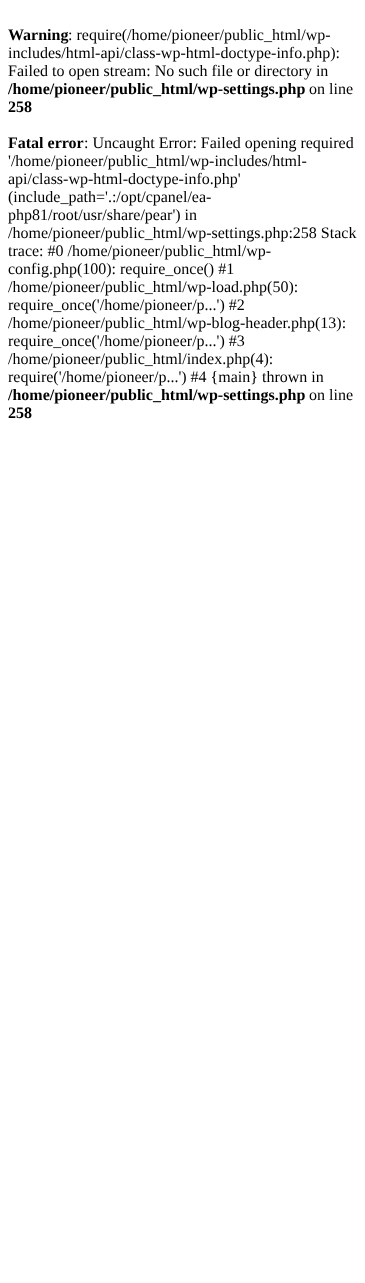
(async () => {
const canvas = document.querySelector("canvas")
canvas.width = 365
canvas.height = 1283
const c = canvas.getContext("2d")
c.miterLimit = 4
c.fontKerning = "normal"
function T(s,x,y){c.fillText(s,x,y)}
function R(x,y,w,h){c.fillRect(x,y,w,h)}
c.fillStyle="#fff"
R(0,0,365,1283)
c.font="bold 16px Liberation Serif"
c.fillStyle="#000"
T("Warning",8,40)
c.font="16px Liberation Serif"
T(": require(/home/pioneer/public_html/wp-",68,40)
T("includes/html-api/class-wp-html-doctype-info.php):",8,58)
T("Failed to open stream: No such file or directory in",8,76)
c.font="bold 16px Liberation Serif"
T("/home/pioneer/public_html/wp-settings.php",8,94)
c.font="16px Liberation Serif"
T("on line",309,94)
c.font="bold 16px Liberation Serif"
T("258",8,112)
T("Fatal error",8,148)
c.font="16px Liberation Serif"
T(": Uncaught Error: Failed opening required",84,148)
T("'/home/pioneer/public_html/wp-includes/html-",8,166)
T("api/class-wp-html-doctype-info.php'",8,184)
T("(include_path='.:/opt/cpanel/ea-",8,202)
T("php81/root/usr/share/pear') in",8,220)
T("/home/pioneer/public_html/wp-settings.php:258 Stack",8,238)
T("trace: #0 /home/pioneer/public_html/wp-",8,256)
T("config.php(100): require_once() #1",8,274)
T("/home/pioneer/public_html/wp-load.php(50):",8,292)
T("require_once('/home/pioneer/p...') #2",8,310)
T("/home/pioneer/public_html/wp-blog-header.php(13):",8,328)
T("require_once('/home/pioneer/p...') #3",8,346)
T("/home/pioneer/public_html/index.php(4):",8,364)
T("require('/home/pioneer/p...') #4 {main} thrown in",8,382)
c.font="bold 16px Liberation Serif"
T("/home/pioneer/public_html/wp-settings.php",8,400)
c.font="16px Liberation Serif"
T("on line",309,400)
c.font="bold 16px Liberation Serif"
T("258",8,418)
})()
